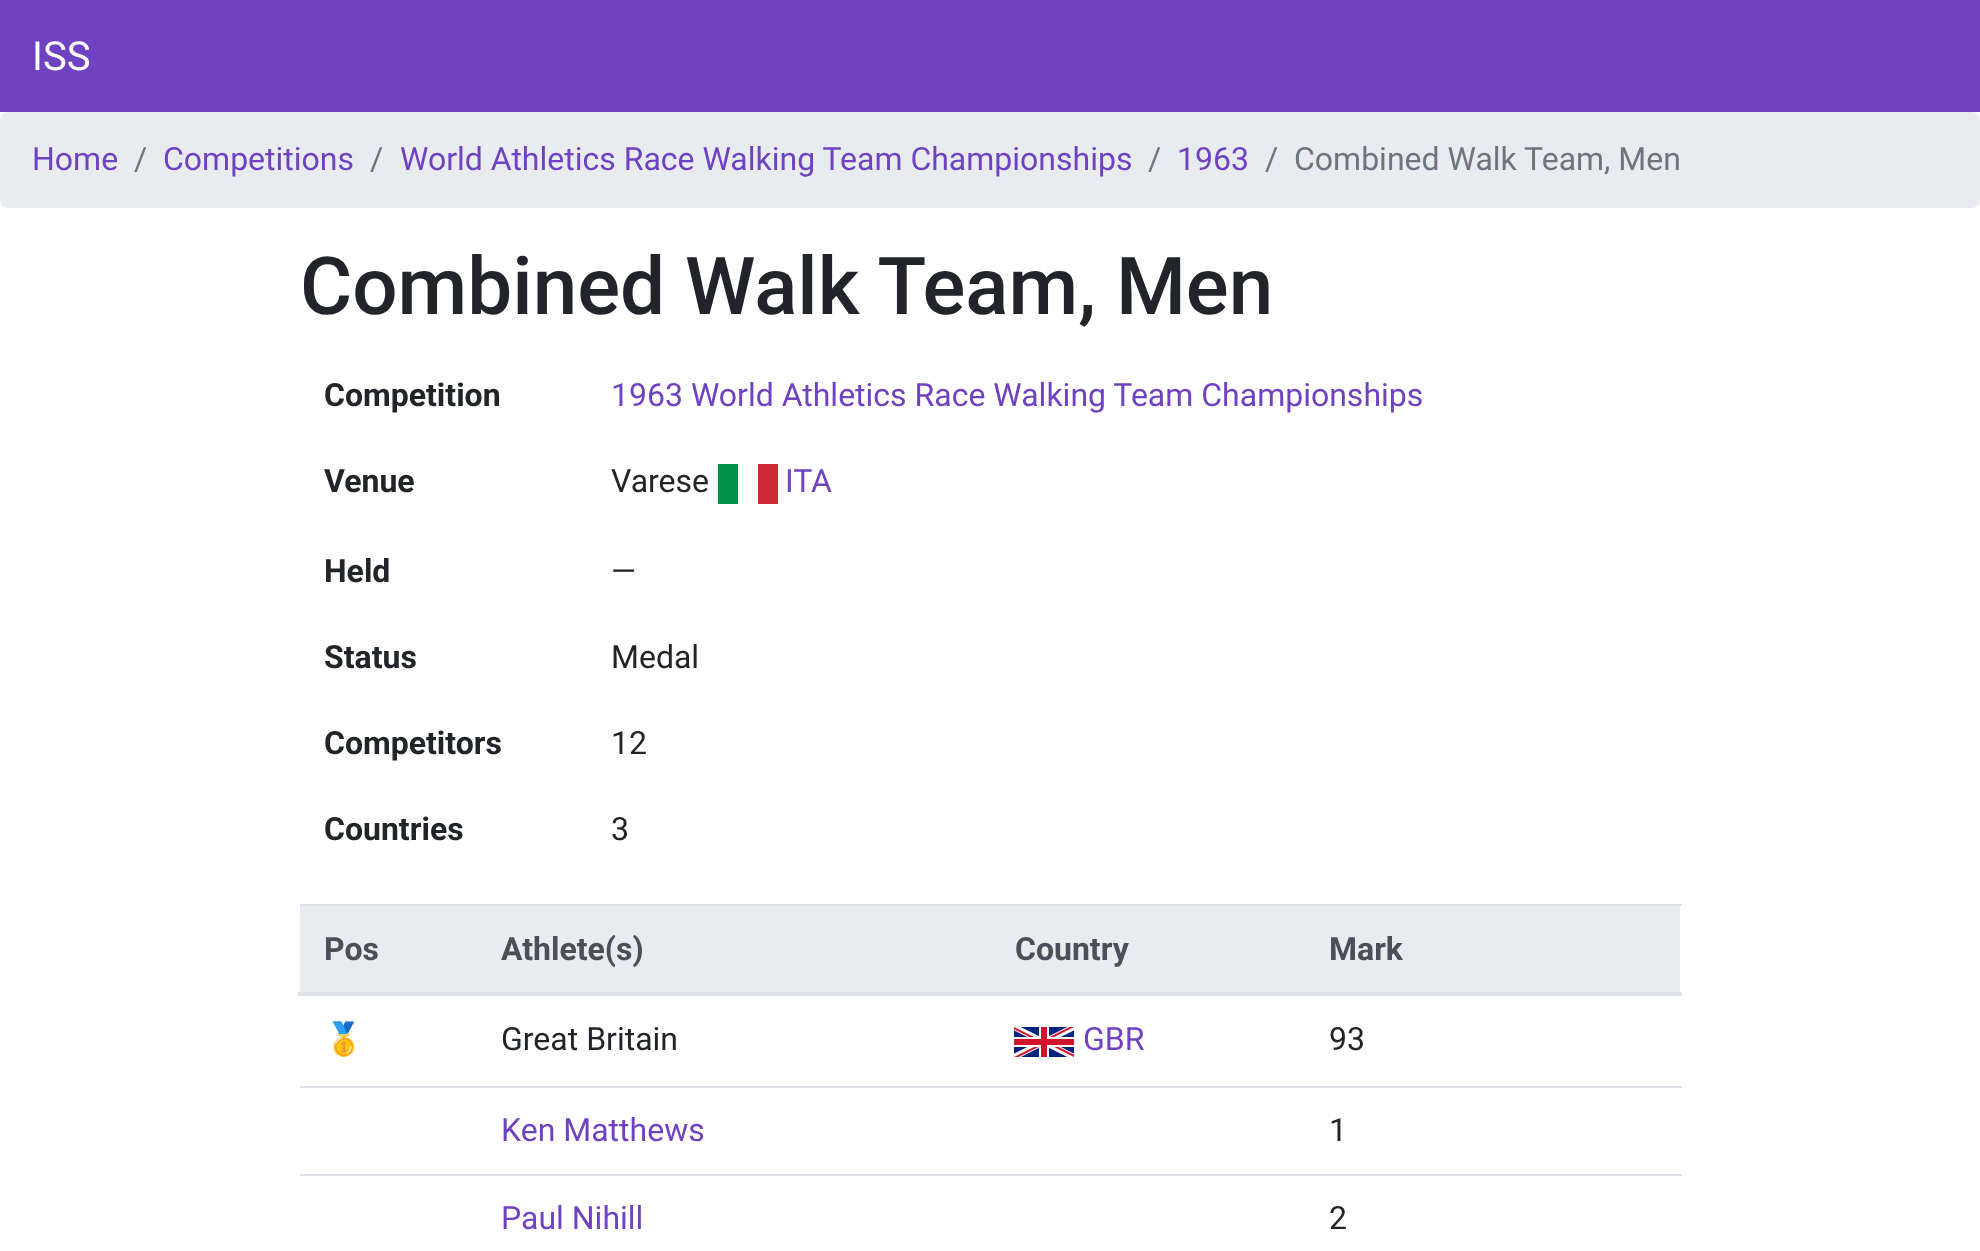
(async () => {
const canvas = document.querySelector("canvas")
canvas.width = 1980
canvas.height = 1251
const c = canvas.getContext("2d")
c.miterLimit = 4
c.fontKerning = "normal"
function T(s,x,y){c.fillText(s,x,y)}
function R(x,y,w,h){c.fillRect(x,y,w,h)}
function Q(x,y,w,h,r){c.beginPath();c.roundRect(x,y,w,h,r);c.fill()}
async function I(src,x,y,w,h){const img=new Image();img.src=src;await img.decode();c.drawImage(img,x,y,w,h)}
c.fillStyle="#fff"
R(0,0,1980,1251)
c.fillStyle="#6f42c1"
R(0,0,1980,112)
c.font="40px Roboto"
c.fillStyle="#fff"
T("ISS",32,70)
c.fillStyle="#e9ecef"
Q(0,112,1980,96,8)
c.font="32px Roboto"
c.fillStyle="#6f42c1"
T("Home",32,170)
c.fillStyle="#6c757d"
T("/",134,170)
c.fillStyle="#6f42c1"
T("Competitions",163,170)
c.fillStyle="#6c757d"
T("/",370,170)
c.fillStyle="#6f42c1"
T("World Athletics Race Walking Team Championships",400,170)
c.fillStyle="#6c757d"
T("/",1148,170)
c.fillStyle="#6f42c1"
T("1963",1177,170)
c.fillStyle="#6c757d"
T("/",1265,170)
T("Combined Walk Team, Men",1294,170)
c.font="500 80px Roboto"
c.fillStyle="#212529"
T("Combined Walk Team, Men",300,314)
c.font="bold 32px Roboto"
T("Competition",324,406)
c.font="32px Roboto"
c.fillStyle="#6f42c1"
T("1963 World Athletics Race Walking Team Championships",611,406)
c.font="bold 32px Roboto"
c.fillStyle="#212529"
T("Venue",324,492)
c.font="32px Roboto"
T("Varese",611,492)
c.fillStyle="#6f42c1"
T("ITA",785,492)
c.fillStyle="#009246"
R(718,464,20,40)
c.fillStyle="#ce2b37"
R(758,464,20,40)
c.font="bold 32px Roboto"
c.fillStyle="#212529"
T("Held",324,582)
c.font="32px Roboto"
T("—",611,582)
c.font="bold 32px Roboto"
T("Status",324,668)
c.font="32px Roboto"
T("Medal",611,668)
c.font="bold 32px Roboto"
T("Competitors",324,754)
c.font="32px Roboto"
T("12",611,754)
c.font="bold 32px Roboto"
T("Countries",324,840)
c.font="32px Roboto"
T("3",611,840)
c.fillStyle="#dee2e6"
R(300,904,1382,2)
R(298,992,1384,4)
c.fillStyle="#e9ecef"
R(300,906,1380,86)
c.font="bold 32px Roboto"
c.fillStyle="#495057"
T("Pos",324,960)
T("Athlete(s)",501,960)
T("Country",1015,960)
T("Mark",1329,960)
c.font="32px Noto Color Emoji"
c.fillStyle="#212529"
T("🥇",324,1050)
c.font="32px Roboto"
T("Great Britain",501,1050)
await I("1.png",1014,1027,60,30)
c.fillStyle="#6f42c1"
T("GBR",1083,1050)
c.fillStyle="#212529"
T("93",1329,1050)
c.fillStyle="#dee2e6"
R(300,1086,1382,2)
c.fillStyle="#6f42c1"
T("Ken Matthews",501,1141)
c.fillStyle="#212529"
T("1",1329,1141)
c.fillStyle="#dee2e6"
R(300,1174,1382,2)
c.fillStyle="#6f42c1"
T("Paul Nihill",501,1229)
c.fillStyle="#212529"
T("2",1329,1229)
})()
